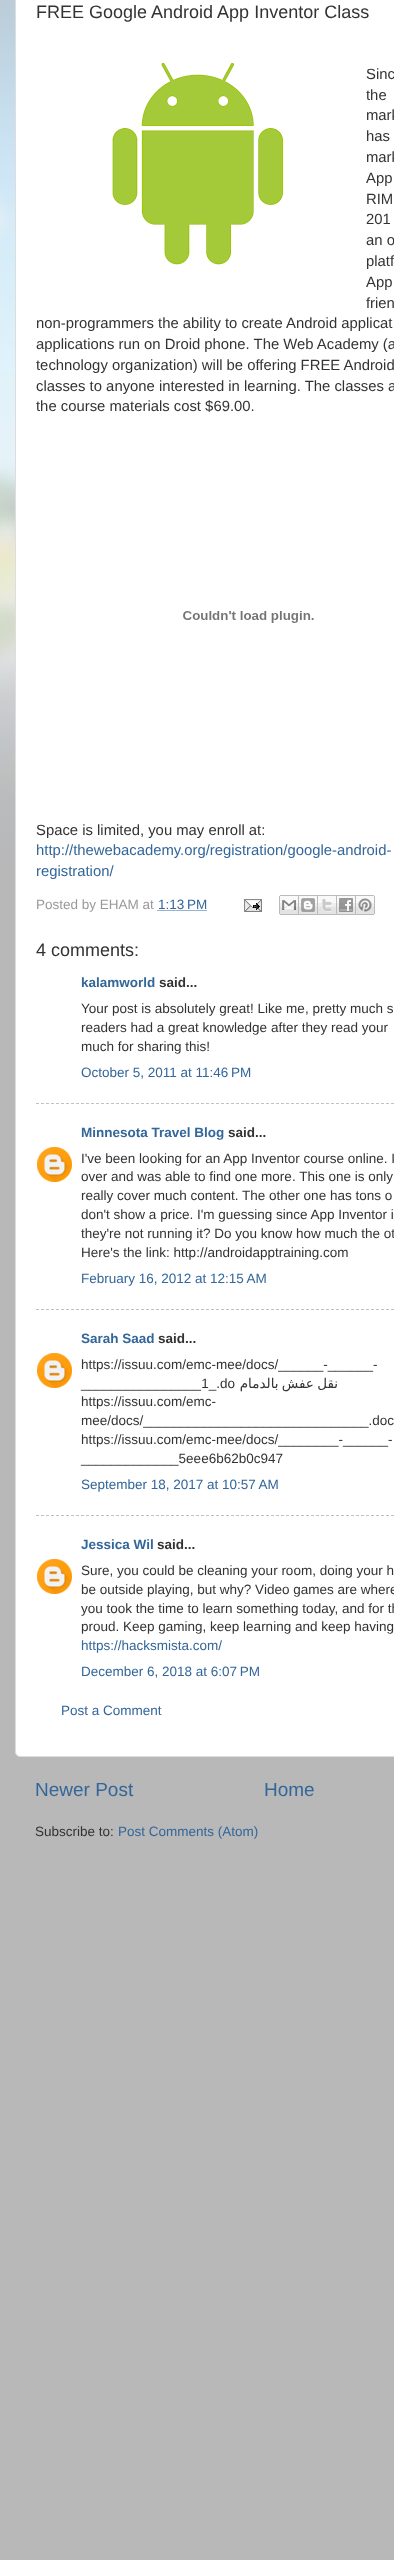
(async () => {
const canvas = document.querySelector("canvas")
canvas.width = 394
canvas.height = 2560
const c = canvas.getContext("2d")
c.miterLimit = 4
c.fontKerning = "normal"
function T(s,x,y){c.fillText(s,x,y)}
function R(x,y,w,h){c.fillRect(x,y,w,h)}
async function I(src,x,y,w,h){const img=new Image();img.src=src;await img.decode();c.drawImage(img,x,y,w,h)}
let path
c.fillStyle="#b8b8b8"
R(0,0,394,2560)
await I("1.png",0,0,15,862)
c.fillStyle="#fff"
c.beginPath()
c.roundRect(15.5,-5.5,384,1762,4.5)
c.fill()
c.strokeStyle="#ddd"
c.stroke()
c.font="18px Liberation Sans"
c.fillStyle="#333"
T("FREE Google Android App Inventor Class",36,18)
await I("2.png",112,63,172,202)
c.font="14.85px Liberation Sans"
T("Sinc",366,79)
T("the",366,100)
T("mark",366,120)
T("has",366,141)
T("mark",366,162)
T("App",366,183)
T("RIM",366,204)
T("201",366,224)
T("an o",366,245)
T("platf",366,266)
T("App",366,287)
T("frien",366,308)
T("non-programmers the ability to create Android applicat",36,328)
T("applications run on Droid phone. The Web Academy (a",36,349)
T("technology organization) will be offering FREE Android",36,370)
T("classes to anyone interested in learning. The classes a",36,391)
T("the course materials cost $69.00.",36,411)
await I("3.png",183,611,131,12)
T("Space is limited, you may enroll at:",36,835)
c.fillStyle="#369"
T("http://thewebacademy.org/registration/google-android-",36,855)
T("registration/",36,876)
c.font="13.5px Liberation Sans"
c.fillStyle="#999"
T("Posted by EHAM at",36,909)
c.fillStyle="#369"
T("1:13 PM",158,909)
path = new Path2D("M157.5 910.5h49.5")
c.strokeStyle="#369"
c.setLineDash([1,1])
c.stroke(path)
await I("4.png",244,899,18,13)
await I("5.png",279,895,20,20)
await I("6.png",299,895,19,20)
await I("7.png",318,895,19,20)
await I("8.png",337,895,19,20)
await I("9.png",356,895,19,20)
c.font="18px Liberation Sans"
c.fillStyle="#333"
T("4 comments:",36,956)
c.font="bold 13.5px Liberation Sans"
c.fillStyle="#369"
T("kalamworld",81,987)
c.fillStyle="#333"
T("said...",159,987)
c.font="13.5px Liberation Sans"
T("Your post is absolutely great! Like me, pretty much s",81,1013)
T("readers had a great knowledge after they read your",81,1032)
T("much for sharing this!",81,1051)
c.fillStyle="#369"
T("October 5, 2011 at 11:46 PM",81,1077)
path = new Path2D("M36 1103.5h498")
c.strokeStyle="#c0c0c0"
c.setLineDash([3,2])
c.stroke(path)
c.font="bold 13.5px Liberation Sans"
T("Minnesota Travel Blog",81,1137)
c.fillStyle="#333"
T("said...",228,1137)
await I("10.png",37,1147,35,35)
c.font="13.5px Liberation Sans"
T("I've been looking for an App Inventor course online. I",81,1163)
T("over and was able to find one more. This one is only",81,1181)
T("really cover much content. The other one has tons o",81,1200)
T("don't show a price. I'm guessing since App Inventor i",81,1219)
T("they're not running it? Do you know how much the ot",81,1238)
T("Here's the link: http://androidapptraining.com",81,1257)
c.fillStyle="#369"
T("February 16, 2012 at 12:15 AM",81,1283)
path = new Path2D("M36 1309.5h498")
c.stroke(path)
c.font="bold 13.5px Liberation Sans"
T("Sarah Saad",81,1343)
c.fillStyle="#333"
T("said...",158,1343)
await I("10.png",37,1353,35,35)
c.font="13.5px Liberation Sans"
T("https://issuu.com/emc-mee/docs/______-______-",81,1369)
T("________________1_.do",81,1388)
c.wordSpacing="-1px"
c.direction="rtl"
c.font="13.5px DejaVu Sans"
T("نقل عفش بالدمام",338,1388)
c.wordSpacing="0px"
c.direction="ltr"
c.font="13.5px Liberation Sans"
T("https://issuu.com/emc-",81,1406)
T("mee/docs/______________________________.doc",81,1425)
T("https://issuu.com/emc-mee/docs/________-______-",81,1444)
T("_____________5eee6b62b0c947",81,1463)
c.fillStyle="#369"
T("September 18, 2017 at 10:57 AM",81,1489)
path = new Path2D("M36 1515.5h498")
c.stroke(path)
c.font="bold 13.5px Liberation Sans"
T("Jessica Wil",81,1549)
c.fillStyle="#333"
T("said...",157,1549)
await I("10.png",37,1559,35,35)
c.font="13.5px Liberation Sans"
T("Sure, you could be cleaning your room, doing your h",81,1575)
T("be outside playing, but why? Video games are where",81,1594)
T("you took the time to learn something today, and for th",81,1613)
T("proud. Keep gaming, keep learning and keep having",81,1631)
c.fillStyle="#369"
T("https://hacksmista.com/",81,1650)
T("December 6, 2018 at 6:07 PM",81,1676)
T("Post a Comment",61,1715)
c.font="19px Liberation Sans"
T("Newer Post",35,1796)
T("Home",264,1796)
c.font="13.5px Liberation Sans"
c.fillStyle="#333"
T("Subscribe to:",35,1836)
c.fillStyle="#369"
T("Post Comments (Atom)",118,1836)
})()
